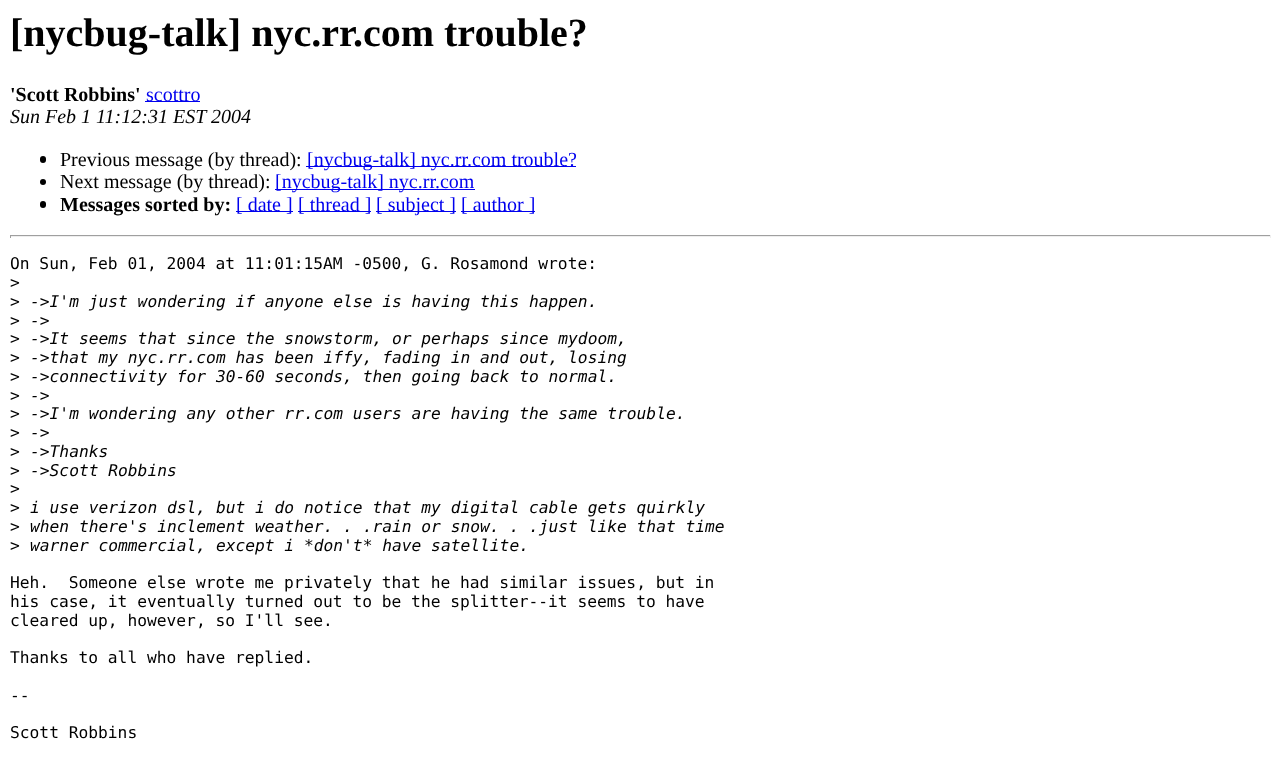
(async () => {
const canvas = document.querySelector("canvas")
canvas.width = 1281
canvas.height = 759
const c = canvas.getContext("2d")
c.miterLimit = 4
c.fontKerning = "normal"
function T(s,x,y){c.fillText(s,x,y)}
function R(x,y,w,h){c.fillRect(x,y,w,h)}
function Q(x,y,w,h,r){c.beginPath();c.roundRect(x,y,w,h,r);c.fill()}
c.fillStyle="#fff"
R(0,0,1281,759)
c.font="bold 40px Liberation Serif"
c.fillStyle="#000"
T("[nycbug-talk] nyc.rr.com trouble?",10,46)
c.font="bold 20px Liberation Serif"
T("'Scott Robbins'",10,101)
c.fillStyle="#00e"
R(145,101,55,1)
c.font="20px Liberation Serif"
T("scottro",146,101)
c.font="italic 20px Liberation Serif"
c.fillStyle="#000"
T("Sun Feb 1 11:12:31 EST 2004",10,123)
Q(40,156,6,7,3)
c.font="20px Liberation Serif"
T("Previous message (by thread):",60,166)
c.fillStyle="#00e"
R(306,166,270,1)
T("[nycbug-talk] nyc.rr.com trouble?",307,166)
c.fillStyle="#000"
c.beginPath()
c.arc(43,182,3,0,7)
c.fill()
T("Next message (by thread):",60,188)
c.fillStyle="#00e"
R(275,189,200,1)
T("[nycbug-talk] nyc.rr.com",275,188)
c.fillStyle="#000"
Q(40,201,6,7,3)
c.font="bold 20px Liberation Serif"
T("Messages sorted by:",60,211)
c.fillStyle="#00e"
R(236,211,57,1)
c.font="20px Liberation Serif"
T("[ date ]",236,211)
R(298,211,73,1)
T("[ thread ]",298,211)
R(376,211,80,1)
T("[ subject ]",376,211)
R(461,211,74,1)
T("[ author ]",461,211)
c.fillStyle="#9f9f9f"
R(10,235,1261,1)
c.fillStyle="#eee"
R(1270,235,1,3)
R(10,236,1261,1)
c.fillStyle="#9f9f9f"
R(10,235,1,3)
c.font="16.25px DejaVu Sans Mono"
c.fillStyle="#000"
T("On Sun, Feb 01, 2004 at 11:01:15AM -0500, G. Rosamond wrote:",10,269)
T(">",10,288)
T(">",10,307)
c.font="italic 16.25px DejaVu Sans Mono"
T("->I'm just wondering if anyone else is having this happen.",30,307)
c.font="16.25px DejaVu Sans Mono"
T(">",10,326)
c.font="italic 16.25px DejaVu Sans Mono"
T("->",30,326)
c.font="16.25px DejaVu Sans Mono"
T(">",10,344)
c.font="italic 16.25px DejaVu Sans Mono"
T("->It seems that since the snowstorm, or perhaps since mydoom,",30,344)
c.font="16.25px DejaVu Sans Mono"
T(">",10,363)
c.font="italic 16.25px DejaVu Sans Mono"
T("->that my nyc.rr.com has been iffy, fading in and out, losing",30,363)
c.font="16.25px DejaVu Sans Mono"
T(">",10,382)
c.font="italic 16.25px DejaVu Sans Mono"
T("->connectivity for 30-60 seconds, then going back to normal.",30,382)
c.font="16.25px DejaVu Sans Mono"
T(">",10,401)
c.font="italic 16.25px DejaVu Sans Mono"
T("->",30,401)
c.font="16.25px DejaVu Sans Mono"
T(">",10,419)
c.font="italic 16.25px DejaVu Sans Mono"
T("->I'm wondering any other rr.com users are having the same trouble.",30,419)
c.font="16.25px DejaVu Sans Mono"
T(">",10,438)
c.font="italic 16.25px DejaVu Sans Mono"
T("->",30,438)
c.font="16.25px DejaVu Sans Mono"
T(">",10,457)
c.font="italic 16.25px DejaVu Sans Mono"
T("->Thanks",30,457)
c.font="16.25px DejaVu Sans Mono"
T(">",10,476)
c.font="italic 16.25px DejaVu Sans Mono"
T("->Scott Robbins",30,476)
c.font="16.25px DejaVu Sans Mono"
T(">",10,494)
T(">",10,513)
c.font="italic 16.25px DejaVu Sans Mono"
T("i use verizon dsl, but i do notice that my digital cable gets quirkly",30,513)
c.font="16.25px DejaVu Sans Mono"
T(">",10,532)
c.font="italic 16.25px DejaVu Sans Mono"
T("when there's inclement weather. . .rain or snow. . .just like that time",30,532)
c.font="16.25px DejaVu Sans Mono"
T(">",10,551)
c.font="italic 16.25px DejaVu Sans Mono"
T("warner commercial, except i *don't* have satellite.",30,551)
c.font="16.25px DejaVu Sans Mono"
T("Heh.  Someone else wrote me privately that he had similar issues, but in",10,588)
T("his case, it eventually turned out to be the splitter--it seems to have",10,607)
T("cleared up, however, so I'll see.",10,626)
T("Thanks to all who have replied.",10,663)
T("--",10,701)
T("Scott Robbins",10,738)
})()
